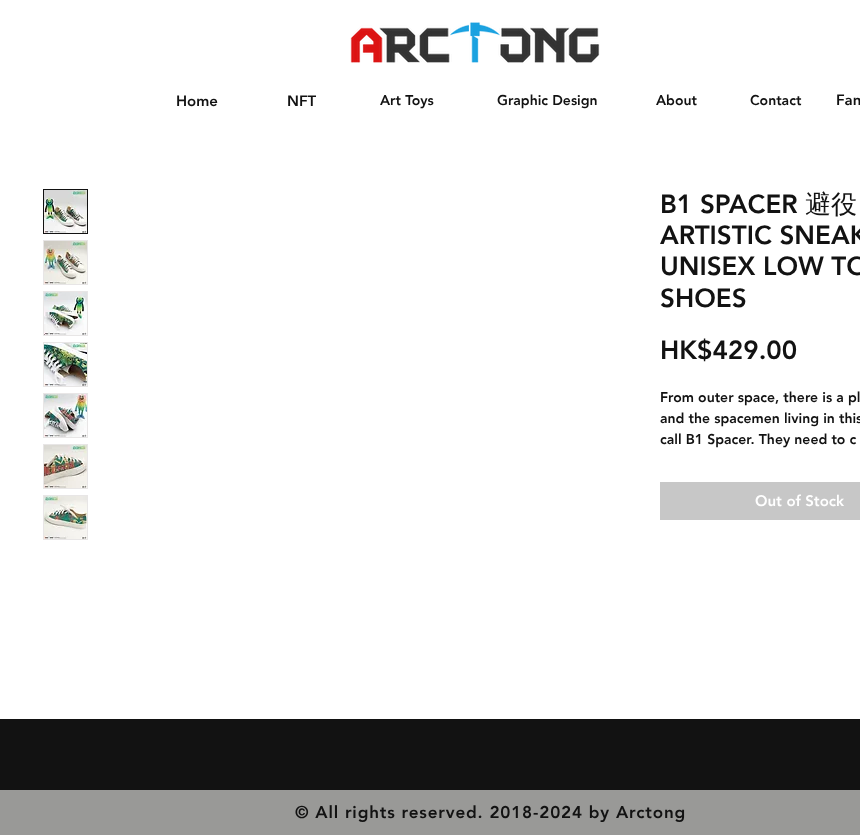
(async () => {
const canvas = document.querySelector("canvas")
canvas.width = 860
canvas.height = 835
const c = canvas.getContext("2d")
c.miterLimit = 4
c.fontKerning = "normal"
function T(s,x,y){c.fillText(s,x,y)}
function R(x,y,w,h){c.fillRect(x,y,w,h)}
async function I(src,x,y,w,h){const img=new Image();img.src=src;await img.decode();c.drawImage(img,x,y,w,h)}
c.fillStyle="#fff"
R(0,0,860,835)
await I("1.png",350,22,250,41)
c.font="900 15px 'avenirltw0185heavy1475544'"
c.fillStyle="#121212"
T("Home",176,106)
T("NFT",287,106)
c.font="900 14px 'avenirltw0185heavy1475544'"
T("Art Toys",380,105)
T("Graphic Design",497,105)
T("About",656,105)
T("Contact",750,105)
c.font="900 15px 'avenirltw0185heavy1475544'"
T("Fan",836,105)
c.strokeStyle="#121212"
c.strokeRect(43.5,189.5,44,44)
await I("2.png",44,190,43,43)
c.fillStyle="#e8e6e6"
R(43,240,45,45)
await I("3.png",44,241,43,43)
R(43,291,45,45)
await I("4.png",44,292,43,43)
R(43,342,45,45)
await I("5.png",44,343,43,43)
R(43,393,45,45)
await I("6.png",44,394,43,43)
R(43,444,45,45)
await I("7.png",44,445,43,43)
R(43,495,45,45)
await I("8.png",44,496,43,43)
c.font="900 26px 'avenirltw0185heavy1475544'"
c.fillStyle="#121212"
T("B1 SPACER",660,213)
c.font="500 26px WenQuanYi Zen Hei"
T("避役",805,213)
c.font="900 26px 'avenirltw0185heavy1475544'"
T("ARTISTIC SNEAK",660,244)
T("UNISEX LOW TO",660,275)
T("SHOES",660,307)
T("HK$429.00",660,359)
c.font="900 14px 'avenirltw0185heavy1475544'"
T("From outer space, there is a pl",660,402)
T("and the spacemen living in this",660,423)
T("call B1 Spacer. They need to c",660,444)
c.fillStyle="#c7c7c7"
R(660,482,200,38)
c.font="900 15px 'avenirltw0185heavy1475544'"
c.fillStyle="#fff"
T("Out of Stock",755,506)
c.fillStyle="#121212"
R(0,719,860,71)
c.fillStyle="#999997"
R(0,790,860,45)
c.letterSpacing="0.85px"
c.font="900 17px 'avenirltw0185heavy1475544'"
c.fillStyle="#121212"
T("© All rights reserved. 2018-2024 by Arctong",295,818)
})()
